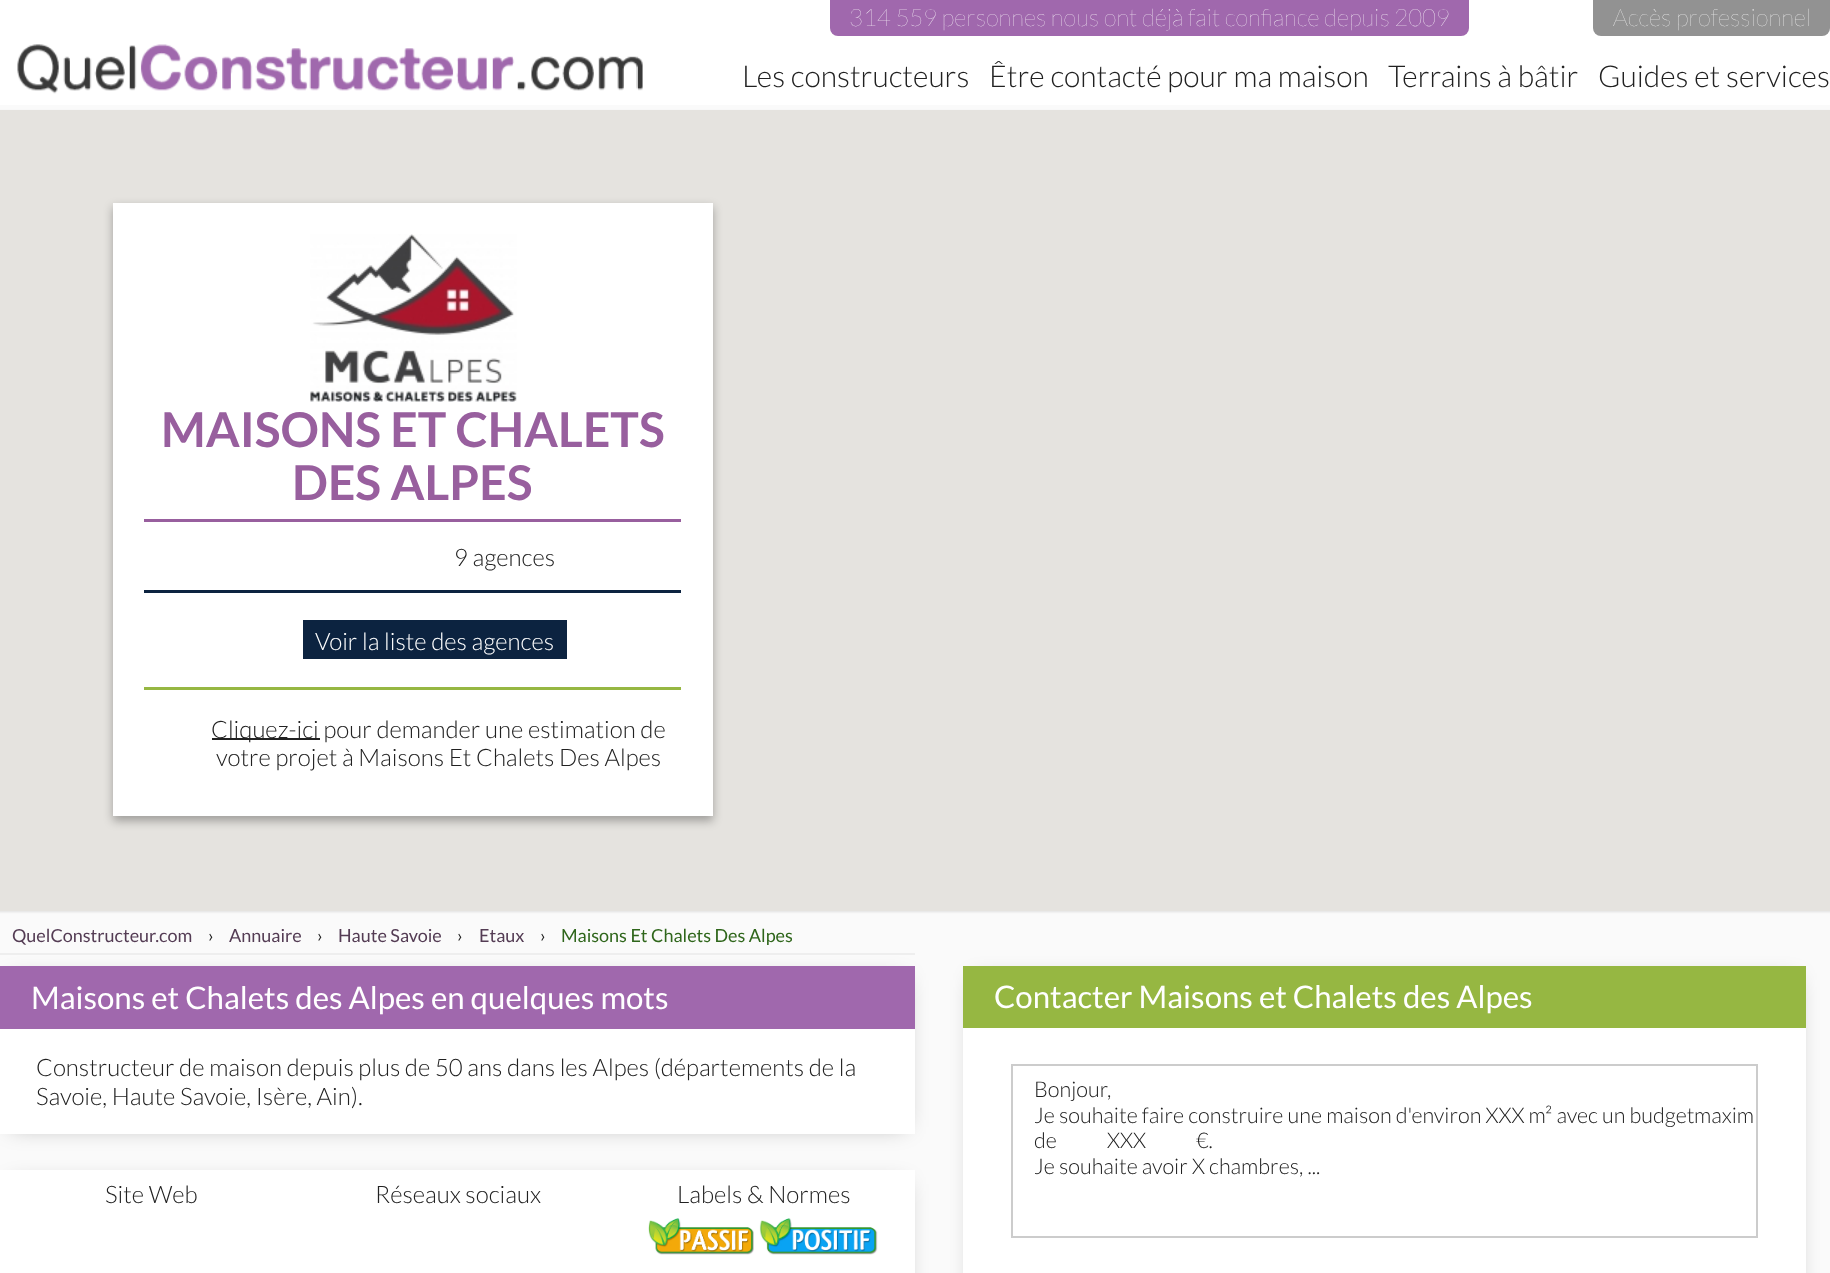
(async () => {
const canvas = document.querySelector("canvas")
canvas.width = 1830
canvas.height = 1273
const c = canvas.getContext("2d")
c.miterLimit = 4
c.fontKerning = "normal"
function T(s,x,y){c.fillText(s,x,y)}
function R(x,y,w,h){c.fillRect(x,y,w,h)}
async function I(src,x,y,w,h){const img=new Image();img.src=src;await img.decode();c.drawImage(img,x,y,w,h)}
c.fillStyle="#fafafa"
R(0,0,1830,1273)
c.fillStyle="#fff"
R(0,0,1830,105)
c.fillStyle="#a068ad"
c.beginPath()
c.roundRect(830,0,639,36,[0,0,8,8])
c.fill()
c.font="100 24px Lato"
c.fillStyle="#fff"
T("314 559 personnes nous ont déjà fait confiance depuis 2009",849,26)
c.fillStyle="#929292"
c.beginPath()
c.roundRect(1593,0,237,36,[0,0,8,8])
c.fill()
c.fillStyle="#fff"
T("Accès professionnel",1613,26)
await I("1.png",17,44,626,50)
c.font="300 30px Lato"
c.fillStyle="#212121"
T("Les constructeurs",742,87)
T("Être contacté pour ma maison",989,87)
T("Terrains à bâtir",1388,87)
T("Guides et services",1598,87)
c.fillStyle="#0000001a"
c.filter="blur(1px)"
c.beginPath()
c.roundRect(-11,111,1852,801,8)
c.fill()
c.filter="none"
c.fillStyle="#e5e3df"
R(0,110,1830,801)
c.fillStyle="#0000004d"
c.filter="blur(5px)"
c.beginPath()
c.rect(113,207,600,614)
c.fill()
c.filter="none"
c.fillStyle="#fff"
R(113,203,600,613)
await I("2.png",310,234,207,168)
c.font="bold 48px Lato"
c.fillStyle="#985f9e"
T("MAISONS ET CHALETS",161,447)
T("DES ALPES",292,500)
R(144,519,537,3)
c.font="300 24px Lato"
c.fillStyle="#212121"
T("9 agences",454,566)
c.fillStyle="#0c2340"
R(144,590,537,3)
R(303,620,264,39)
c.fillStyle="#fff"
T("Voir la liste des agences",315,650)
c.fillStyle="#96b742"
R(144,687,537,3)
c.fillStyle="#212121"
R(212,738,108,2)
T("Cliquez-ici pour demander une estimation de",211,738)
T("votre projet à Maisons Et Chalets Des Alpes",216,766)
c.fillStyle="#eee"
R(0,953,915,2)
c.font="18px Lato"
c.fillStyle="#543c54"
T("QuelConstructeur.com",12,942)
c.fillStyle="#212121"
T("›",208,942)
c.fillStyle="#543c54"
T("Annuaire",229,942)
c.fillStyle="#212121"
T("›",317,942)
c.fillStyle="#543c54"
T("Haute Savoie",338,942)
c.fillStyle="#212121"
T("›",457,942)
c.fillStyle="#543c54"
T("Etaux",479,942)
c.fillStyle="#212121"
T("›",540,942)
c.fillStyle="#2f661b"
T("Maisons Et Chalets Des Alpes",561,942)
c.fillStyle="#0000004d"
c.filter="blur(11px)"
c.beginPath()
c.rect(11,980,894,147)
c.fill()
c.filter="none"
c.fillStyle="#fff"
R(0,1029,915,105)
c.fillStyle="#a068ad"
R(0,966,915,63)
c.font="31.2px Lato"
c.fillStyle="#fff"
T("Maisons et Chalets des Alpes en quelques mots",31,1009)
c.font="300 24px Lato"
c.fillStyle="#212121"
T("Constructeur de maison depuis plus de 50 ans dans les Alpes (départements de la",36,1076)
T("Savoie, Haute Savoie, Isère, Ain).",36,1105)
c.fillStyle="#0000004d"
c.filter="blur(11px)"
c.beginPath()
c.rect(11,1184,894,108)
c.fill()
c.filter="none"
c.fillStyle="#fff"
R(0,1170,915,103)
c.fillStyle="#212121"
T("Site Web",105,1203)
T("Réseaux sociaux",375,1203)
T("Labels & Normes",677,1203)
await I("3.png",648,1218,106,37)
await I("4.png",759,1218,119,37)
c.fillStyle="#0000004d"
c.filter="blur(11px)"
c.beginPath()
c.rect(974,980,822,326)
c.fill()
c.filter="none"
c.fillStyle="#fff"
R(963,1028,843,245)
c.fillStyle="#96b742"
R(963,966,843,62)
c.font="31.2px Lato"
c.fillStyle="#fff"
T("Contacter Maisons et Chalets des Alpes",994,1008)
c.strokeStyle="#ccc"
c.lineWidth=2
c.strokeRect(1012,1065,745,172)
c.font="300 21.6px Lato"
c.fillStyle="#212121"
T("Bonjour,",1034,1097)
T("Je souhaite faire construire une maison d'environ XXX m² avec un budget",1034,1123)
T("maxim",1694,1123)
c.wordSpacing="46px"
T("de XXX €.",1034,1148)
c.wordSpacing="0px"
T("Je souhaite avoir X chambres, ...",1034,1174)
})()
